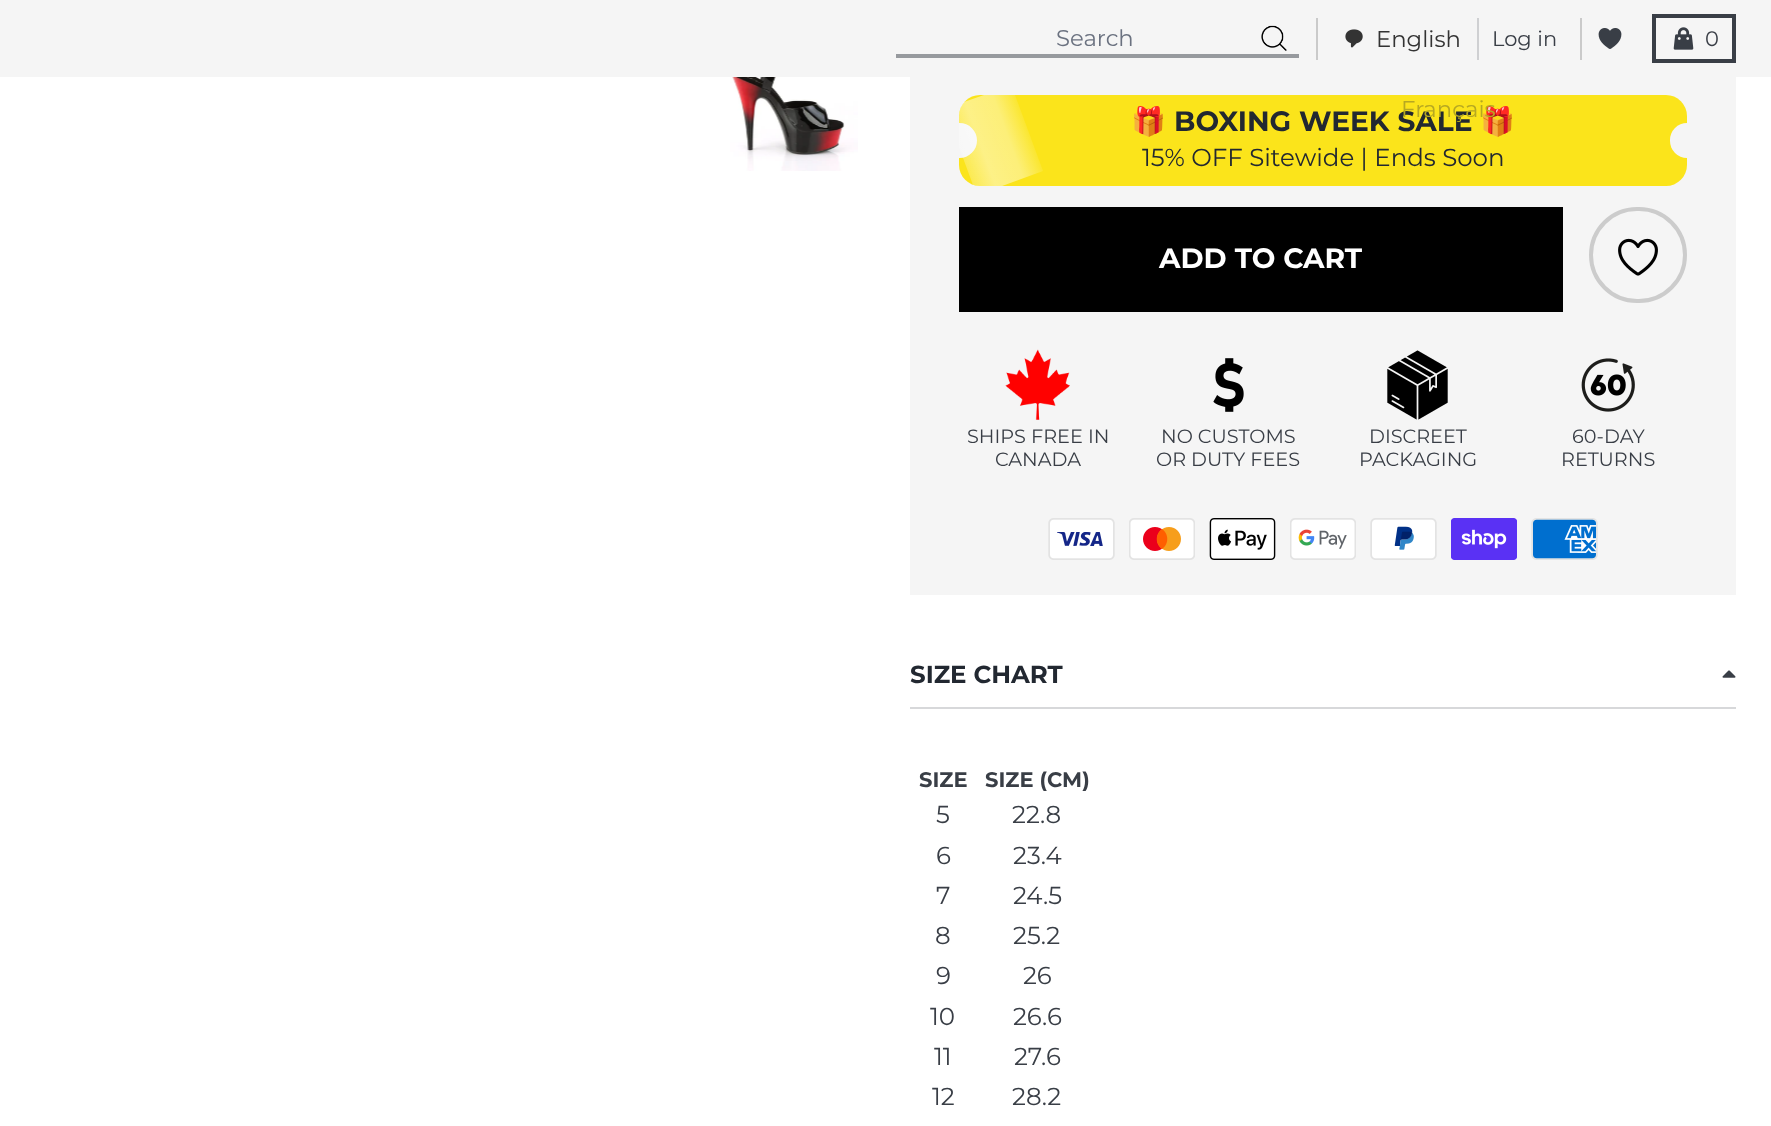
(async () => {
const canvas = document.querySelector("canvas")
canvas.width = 1771
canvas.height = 1126
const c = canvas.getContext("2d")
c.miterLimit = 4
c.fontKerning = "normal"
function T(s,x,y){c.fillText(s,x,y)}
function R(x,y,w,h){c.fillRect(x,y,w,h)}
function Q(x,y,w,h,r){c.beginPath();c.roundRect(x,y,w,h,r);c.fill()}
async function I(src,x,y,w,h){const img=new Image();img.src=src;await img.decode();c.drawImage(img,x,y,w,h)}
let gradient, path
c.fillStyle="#fff"
R(0,0,1771,1126)
c.fillStyle="#f5f5f5"
R(0,0,1771,77)
c.fillStyle="#979a9e"
R(896,54,403,4)
c.font="22.75px Montserrat"
c.fillStyle="#6b7280"
T("Search",1056,46)
await I("1.png",1261,25,26,26)
c.fillStyle="#cacaca"
R(1580,18,2,42)
R(1316,18,2,42)
await I("2.png",1345,29,18,19)
c.fillStyle="#333"
T("English",1376,47)
c.fillStyle="#f5f5f5"
R(910,77,826,518)
c.fillStyle="#fbe41b"
Q(959,95,728,91,21)
c.font="bold 28px Montserrat"
c.fillStyle="#222831"
T("BOXING WEEK SALE",1174,131)
c.font="bold 28px Noto Color Emoji"
T("🎁",1480,131)
c.font="22.75px Montserrat"
c.fillStyle="#b6a822"
T("Français",1401,117)
c.fillStyle="#cfd0d2"
R(1477,18,2,42)
c.font="21px Montserrat"
c.fillStyle="#393e46"
T("Log in",1492,46)
await I("3.png",1598,28,24,21)
c.strokeStyle="#393e46"
c.lineWidth=4
c.strokeRect(1654,16,80,45)
await I("4.png",1673,27,21,23)
T("0",1705,46)
await I("5.png",730,77,128,94)
c.save()
c.beginPath()
c.roundRect(959,95,728,91,21)
c.clip()
c.fillStyle="#f5f5f5"
c.beginPath()
c.arc(959.5,140.5,17.5,0,7)
c.fill()
c.restore()
gradient = c.createLinearGradient(961,152,1027,128)
gradient.addColorStop(0,"#ffffff33")
gradient.addColorStop(.7,"#ffffff4d")
gradient.addColorStop(1,"#ffffff0d")
c.fillStyle = gradient
path = new Path2D("M973 185l-14-38v-31c0-5 2-10 5-14l20-7h31l28 76l-41 15h-22c-2 0-5 0-7-1z")
c.fill(path)
gradient = c.createLinearGradient(1027,128,961,152)
gradient.addColorStop(0,"#ffffff0d")
gradient.addColorStop(.7,"#ffffff4d")
gradient.addColorStop(1,"#ffffff0d")
c.fillStyle = gradient
path = new Path2D("M973 185l-14-38v-31c0-5 2-10 5-14l20-7h31l28 76l-41 15h-22c-2 0-5 0-7-1z")
c.fill(path)
c.font="bold 28px Noto Color Emoji"
c.fillStyle="#222831"
T("🎁",1131,131)
c.font="24.5px Montserrat"
T("15% OFF Sitewide | Ends Soon",1142,166)
c.fillStyle="#f5f5f5"
c.beginPath()
c.roundRect(1670,123,17,35,[17.5,0,0,17.5])
c.fill()
c.fillStyle="#000"
R(959,207,604,105)
c.font="bold 28px Montserrat"
c.fillStyle="#fff"
T("ADD TO CART",1159,268)
c.beginPath()
c.roundRect(1591,209,94,92,46)
c.strokeStyle="#ccc"
c.stroke()
await I("6.png",1618,238,40,38)
await I("7.png",1005,349,65,71)
c.font="19.25px Montserrat"
c.fillStyle="#393e46"
T("SHIPS FREE IN",967,443)
T("CANADA",995,466)
await I("8.png",1213,358,31,54)
T("NO CUSTOMS",1161,443)
T("OR DUTY FEES",1156,466)
await I("9.png",1387,350,61,70)
T("DISCREET",1369,443)
T("PACKAGING",1359,466)
await I("10.png",1581,358,54,54)
T("60-DAY",1572,443)
T("RETURNS",1561,466)
await I("11.png",1048,518,67,42)
await I("12.png",1129,518,66,42)
await I("13.png",1209,518,67,42)
await I("14.png",1290,518,66,42)
await I("15.png",1370,518,67,42)
await I("16.png",1451,518,66,42)
await I("17.png",1531,518,67,42)
c.fillStyle="#d7d8da"
R(910,707,826,2)
c.font="bold 24.5px Montserrat"
c.fillStyle="#222831"
T("SIZE CHART",910,683)
await I("18.png",1722,670,14,8)
c.font="bold 21px Montserrat"
c.fillStyle="#393e46"
T("SIZE",919,787)
T("SIZE (CM)",985,787)
c.font="24.5px Montserrat"
T("5",936,823)
T("22.8",1012,823)
T("6",936,864)
T("23.4",1013,864)
T("7",936,904)
T("24.5",1013,904)
T("8",935,944)
T("25.2",1013,944)
T("9",936,984)
T("26",1023,984)
T("10",930,1025)
T("26.6",1013,1025)
T("11",934,1065)
T("27.6",1014,1065)
T("12",932,1105)
T("28.2",1012,1105)
})()
